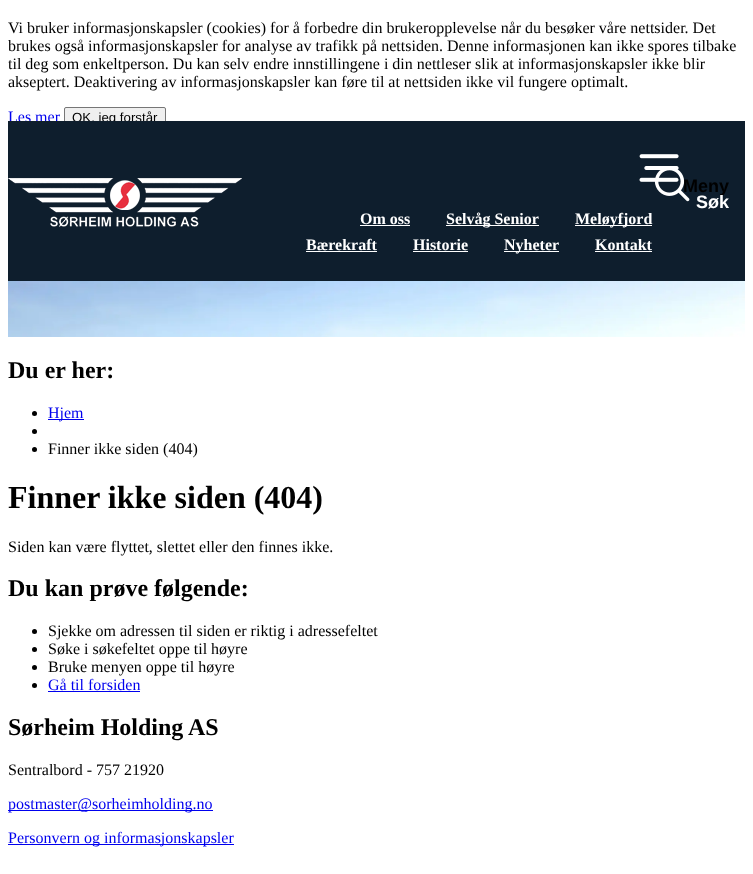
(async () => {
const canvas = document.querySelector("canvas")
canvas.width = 753
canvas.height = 874
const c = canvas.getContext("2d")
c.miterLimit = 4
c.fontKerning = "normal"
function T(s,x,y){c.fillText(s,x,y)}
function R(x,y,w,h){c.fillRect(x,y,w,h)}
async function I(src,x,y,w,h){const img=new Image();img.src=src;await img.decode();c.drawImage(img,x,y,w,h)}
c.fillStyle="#fff"
R(0,0,753,874)
c.font="16px Liberation Serif"
c.fillStyle="#000"
T("Vi bruker informasjonskapsler (cookies) for å forbedre din brukeropplevelse når du besøker våre nettsider. Det",8,33)
T("brukes også informasjonskapsler for analyse av trafikk på nettsiden. Denne informasjonen kan ikke spores tilbake",8,51)
T("til deg som enkeltperson. Du kan selv endre innstillingene i din nettleser slik at informasjonskapsler ikke blir",8,69)
T("akseptert. Deaktivering av informasjonskapsler kan føre til at nettsiden ikke vil fungere optimalt.",8,87)
c.fillStyle="#00e"
T("Les mer",8,122)
c.fillStyle="#efefef"
c.beginPath()
c.roundRect(64.5,107.5,101,20,1.5)
c.fill()
c.strokeStyle="#767676"
c.stroke()
c.font="13.25px Liberation Sans"
c.fillStyle="#000"
T("OK, jeg forstår",72,122)
c.fillStyle="#0e1e2d"
R(8,121,737,160)
await I("1.png",8,281,737,56)
await I("2.png",8,178,234,49)
await I("4.png",654,169,36,33)
await I("3.png",639,154,40,28)
c.font="bold 18px Liberation Sans"
c.fillStyle="#000"
T("Meny",683,192)
c.fillStyle="#fff"
T("Søk",696,208)
c.font="bold 16px Liberation Serif"
T("Om oss",360,224)
R(360,225,50,1)
R(446,225,93,1)
T("Selvåg Senior",446,224)
R(575,225,77,1)
T("Meløyfjord",575,224)
T("Bærekraft",306,250)
R(306,251,71,1)
T("Historie",413,250)
R(413,251,55,1)
R(504,251,55,1)
T("Nyheter",504,250)
T("Kontakt",595,250)
R(595,251,57,1)
c.font="bold 24px Liberation Serif"
c.fillStyle="#000"
T("Du er her:",8,378)
c.beginPath()
c.arc(34.5,413.5,2.5,0,7)
c.fill()
c.fillStyle="#00e"
R(48,419,36,1)
c.font="16px Liberation Serif"
T("Hjem",48,418)
c.fillStyle="#000"
c.beginPath()
c.arc(34.5,431.5,2.5,0,7)
c.fill()
c.beginPath()
c.arc(34.5,449.5,2.5,0,7)
c.fill()
T("Finner ikke siden (404)",48,454)
c.font="bold 32px Liberation Serif"
T("Finner ikke siden (404)",8,508)
c.font="16px Liberation Serif"
T("Siden kan være flyttet, slettet eller den finnes ikke.",8,552)
c.font="bold 24px Liberation Serif"
T("Du kan prøve følgende:",8,596)
c.beginPath()
c.arc(34.5,631.5,2.5,0,7)
c.fill()
c.font="16px Liberation Serif"
T("Sjekke om adressen til siden er riktig i adressefeltet",48,636)
c.beginPath()
c.arc(34.5,649.5,2.5,0,7)
c.fill()
T("Søke i søkefeltet oppe til høyre",48,654)
c.beginPath()
c.arc(34.5,667.5,2.5,0,7)
c.fill()
T("Bruke menyen oppe til høyre",48,672)
c.beginPath()
c.arc(34.5,685.5,2.5,0,7)
c.fill()
c.fillStyle="#00e"
T("Gå til forsiden",48,690)
R(48,691,92,1)
c.font="bold 24px Liberation Serif"
c.fillStyle="#000"
T("Sørheim Holding AS",8,735)
c.font="16px Liberation Serif"
T("Sentralbord - 757 21920",8,775)
c.fillStyle="#00e"
R(8,810,205,1)
T("postmaster@sorheimholding.no",8,809)
R(8,844,226,1)
T("Personvern og informasjonskapsler",8,843)
})()
